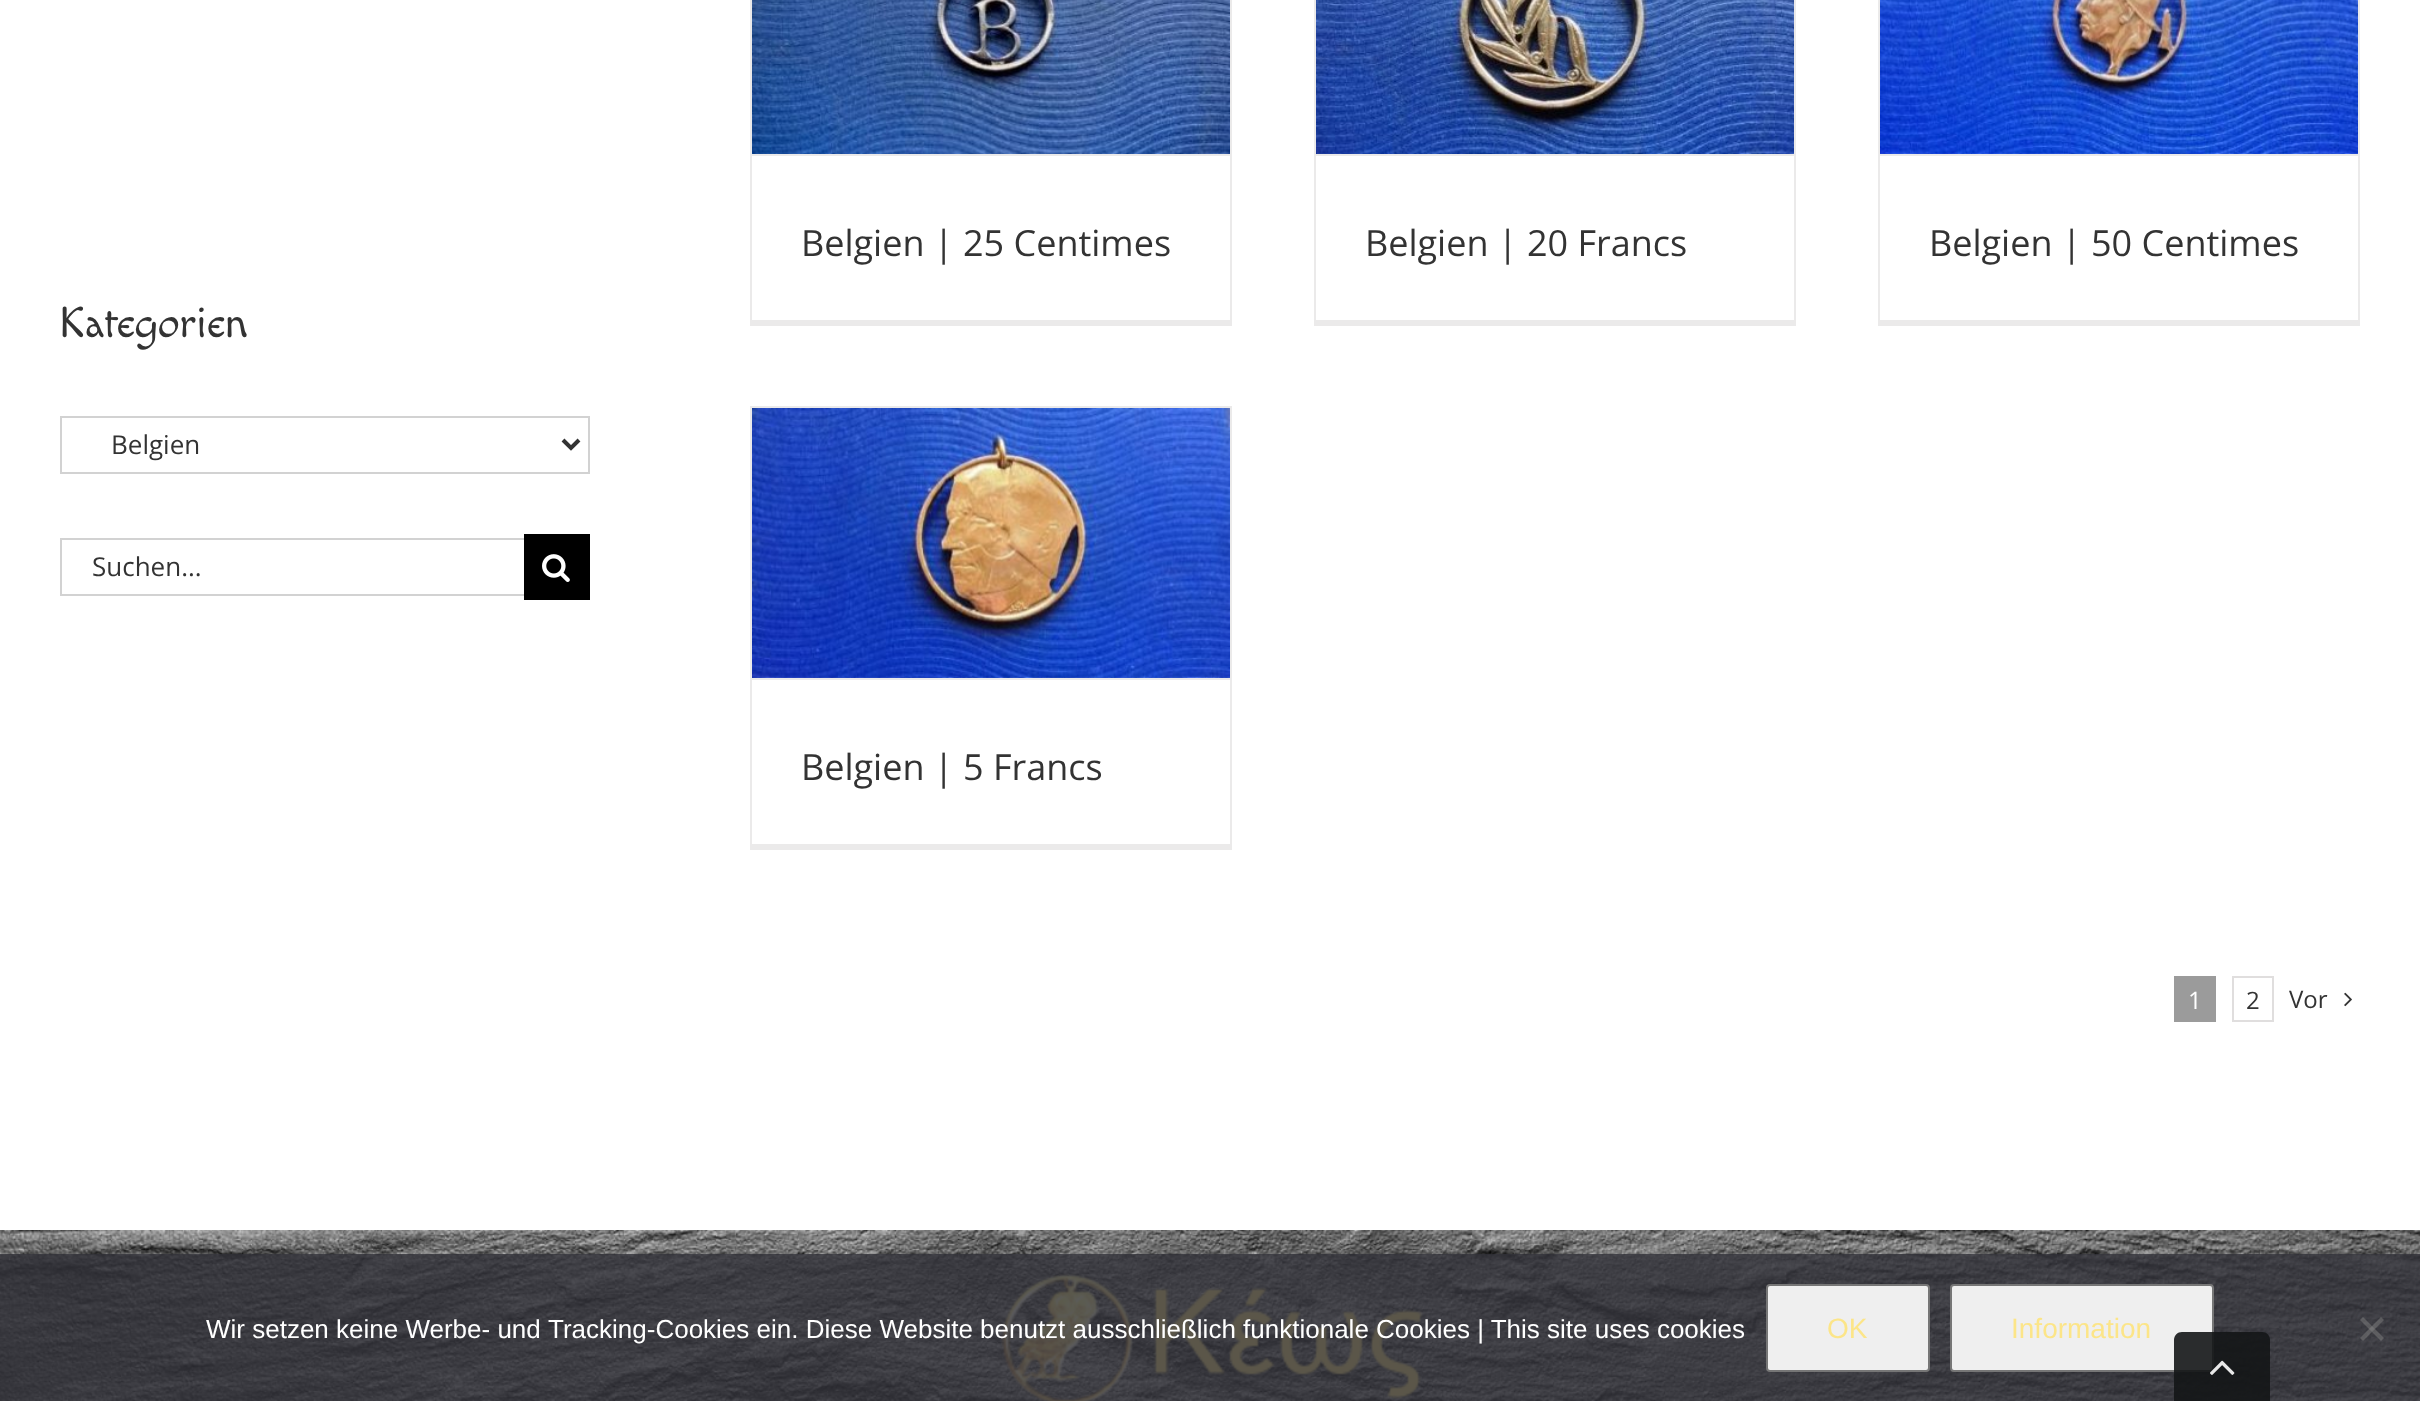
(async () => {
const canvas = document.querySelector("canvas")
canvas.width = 2420
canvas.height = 1401
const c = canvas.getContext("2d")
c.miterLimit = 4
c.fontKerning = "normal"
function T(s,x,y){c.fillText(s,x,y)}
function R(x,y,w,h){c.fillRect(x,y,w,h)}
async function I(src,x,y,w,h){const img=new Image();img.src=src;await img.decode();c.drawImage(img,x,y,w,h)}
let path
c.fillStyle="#fff"
R(0,0,2420,1401)
c.font="44px Macondo"
c.fillStyle="#333"
T("Kategorien",60,337)
c.strokeStyle="#d2d2d2"
c.lineWidth=2
c.strokeRect(61,417,528,56)
path = new Path2D("M563 440l8 8l8-8")
c.strokeStyle="#333"
c.lineWidth=4
c.stroke(path)
c.font="26px Open Sans"
T("Belgien",111,454)
c.fillStyle="#d2d2d2"
R(60,538,464,2)
R(60,594,464,2)
R(60,538,2,58)
c.fillStyle="#333"
T("Suchen...",92,576)
c.fillStyle="#000"
R(524,534,66,66)
await I("1.png",542,554,28,28)
c.fillStyle="#ebeaea"
R(1230,0,2,326)
R(750,320,482,6)
R(750,0,2,326)
R(752,154,478,2)
await I("2.png",752,0,478,154)
c.font="36px Open Sans"
c.fillStyle="#333"
T("Belgien | 25 Centimes",801,256)
c.fillStyle="#ebeaea"
R(1794,0,2,326)
R(1314,320,482,6)
R(1314,0,2,326)
R(1316,154,478,2)
await I("3.png",1316,0,478,154)
c.fillStyle="#333"
T("Belgien | 20 Francs",1365,256)
c.fillStyle="#ebeaea"
R(2358,0,2,326)
R(1878,320,482,6)
R(1878,0,2,326)
R(1880,154,478,2)
await I("4.png",1880,0,478,154)
c.fillStyle="#333"
T("Belgien | 50 Centimes",1929,256)
c.fillStyle="#ebeaea"
R(750,406,482,2)
R(1230,406,2,444)
R(750,844,482,6)
R(750,406,2,444)
R(752,678,478,2)
await I("5.png",752,408,478,270)
c.fillStyle="#333"
T("Belgien | 5 Francs",801,780)
c.fillStyle="#9b9b9b"
R(2174,976,42,46)
c.font="24px Open Sans"
c.fillStyle="#fff"
T("1",2188,1009)
c.strokeStyle="#e0dede"
c.lineWidth=2
c.strokeRect(2233,977,40,44)
c.fillStyle="#333"
T("2",2246,1009)
T("Vor",2289,1008)
await I("6.png",2344,992,8,15)
await I("7.png",0,1230,2420,171)
await I("8.png",1001,1273,422,128)
c.fillStyle="#32323acc"
R(0,1254,2420,147)
c.font="26px Liberation Sans"
c.fillStyle="#fff"
T("Wir setzen keine Werbe- und",206,1338)
T("Tracking-Cookies ein. Diese Website benutzt ausschließlich funktionale Cookies | This site uses cookies",548,1338)
c.fillStyle="#efefef"
c.beginPath()
c.roundRect(1767,1285,162,86,3)
c.fill()
c.strokeStyle="#767676"
c.stroke()
c.font="28px Liberation Sans"
c.fillStyle="#fce588"
T("OK",1827,1338)
c.fillStyle="#efefef"
c.beginPath()
c.roundRect(1951,1285,262,86,3)
c.fill()
c.stroke()
c.fillStyle="#fce588"
T("Information",2011,1338)
c.fillStyle="#80808080"
path = new Path2D("M2381 1317l3 3l-21 21l-3-3z")
c.fill(path)
path = new Path2D("M2360 1320l3-3l21 21l-3 3z")
c.fill(path)
c.fillStyle="#141617e6"
path = new Path2D("M2182 1332h80c4.5 0 8 3.5 8 8v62h-96v-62c0-4.5 3.5-8 8-8z")
c.fill(path)
await I("9.png",2210,1360,25,15)
})()
